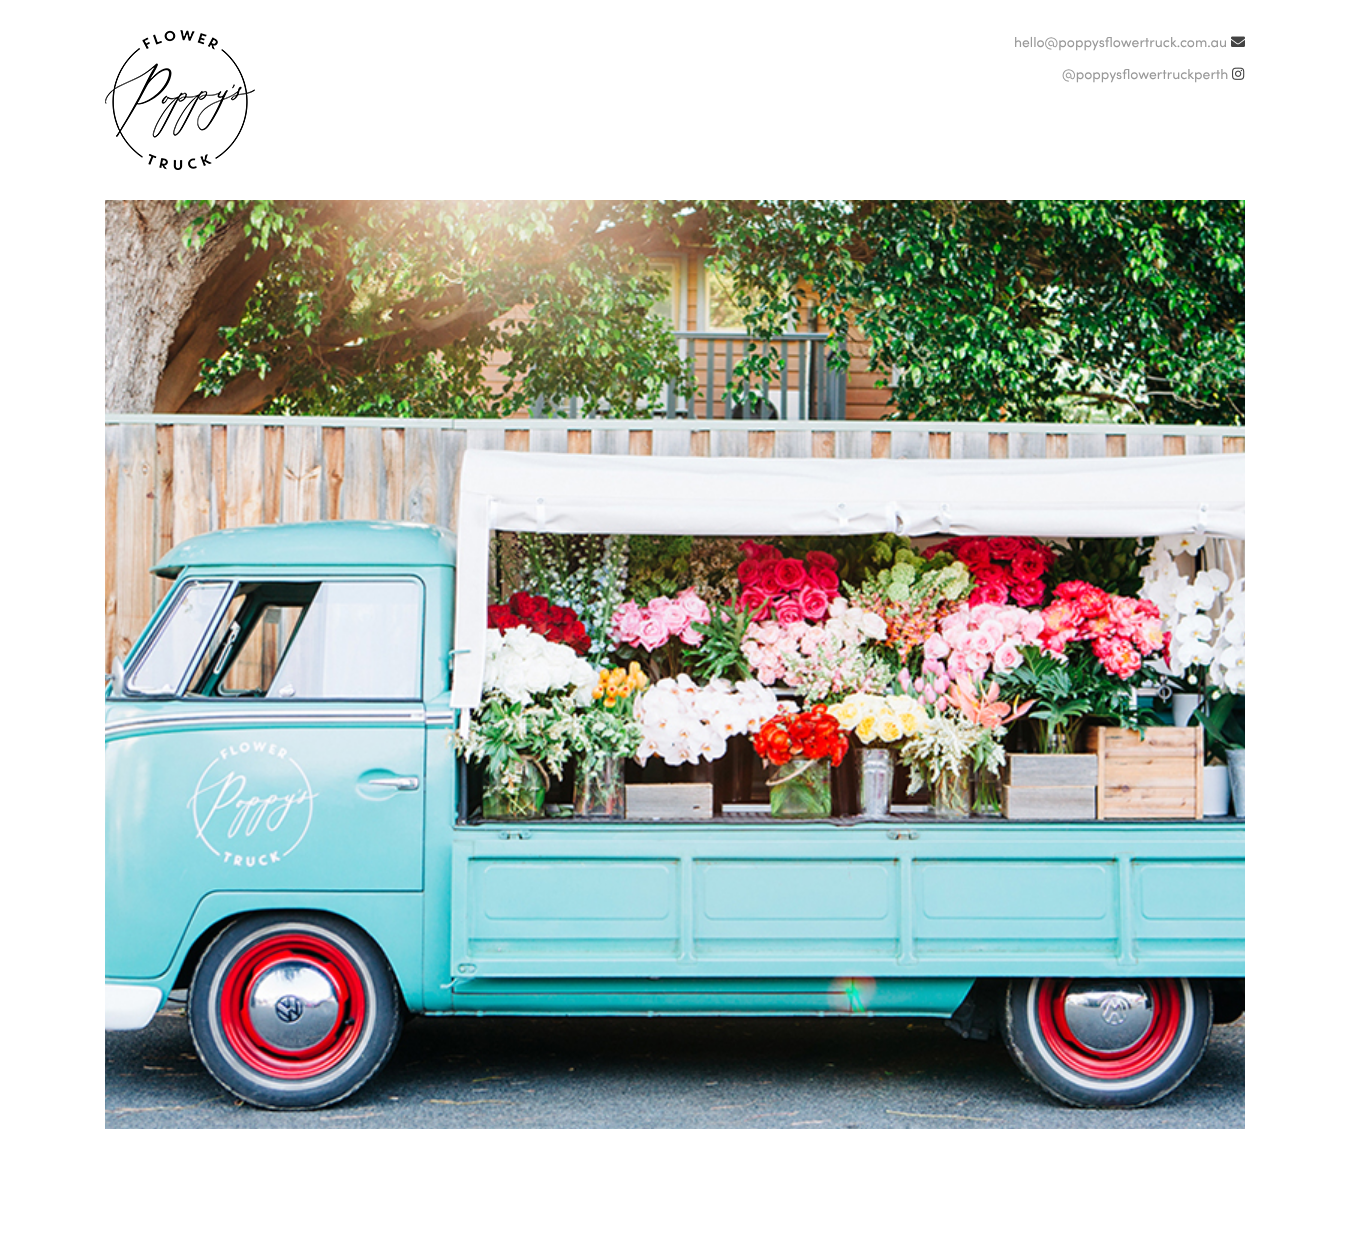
(async () => {
const canvas = document.querySelector("canvas")
canvas.width = 1349
canvas.height = 1238
const c = canvas.getContext("2d")
c.miterLimit = 4
c.fontKerning = "normal"
function T(s,x,y){c.fillText(s,x,y)}
function R(x,y,w,h){c.fillRect(x,y,w,h)}
async function I(src,x,y,w,h){const img=new Image();img.src=src;await img.decode();c.drawImage(img,x,y,w,h)}
c.fillStyle="#fff"
R(0,0,1349,1238)
await I("1.png",105,30,150,140)
c.font="14px Sofia"
c.fillStyle="#999"
T("hello@poppysflowertruck.com.au",1014,47)
await I("2.png",1231,36,14,11)
T("@poppysflowertruckperth",1062,79)
await I("3.png",1232,67,13,13)
await I("4.png",105,200,1140,929)
})()
